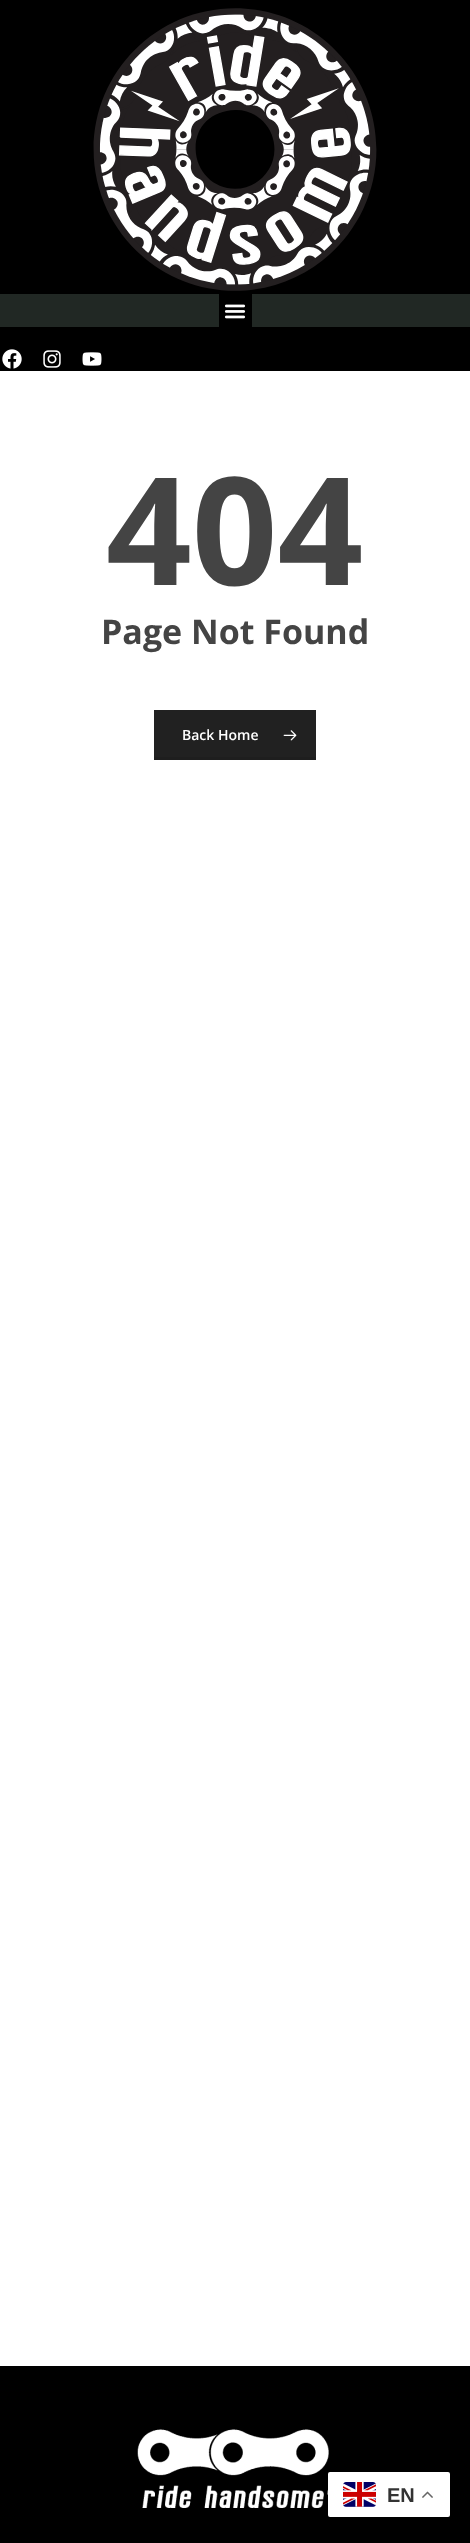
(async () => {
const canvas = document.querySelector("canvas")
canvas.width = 470
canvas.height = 2543
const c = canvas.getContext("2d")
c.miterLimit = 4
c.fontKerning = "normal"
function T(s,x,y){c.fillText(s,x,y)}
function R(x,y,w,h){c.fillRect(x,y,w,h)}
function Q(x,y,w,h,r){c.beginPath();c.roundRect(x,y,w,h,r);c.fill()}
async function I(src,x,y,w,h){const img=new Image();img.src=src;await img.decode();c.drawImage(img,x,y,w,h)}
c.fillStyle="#fff"
R(0,0,470,2543)
c.fillStyle="#000"
R(0,0,470,371)
await I("1.png",93,8,284,283)
c.fillStyle="#212824"
R(0,294,470,33)
c.fillStyle="#000"
R(219,294,33,33)
await I("2.png",224,304,22,15)
await I("3.png",2,349,20,20)
await I("4.png",43,350,18,18)
await I("5.png",82,352,20,14)
c.font="bold 150px Open Sans"
c.fillStyle="#444"
T("404",106,585)
c.font="bold 34px Open Sans"
T("Page Not Found",101,644)
c.fillStyle="#212121"
R(154,710,162,47)
c.fillStyle="#1e1e1e"
R(154,757,162,3)
c.font="600 14px Open Sans"
c.fillStyle="#fff"
T("Back Home",182,740)
await I("6.png",283,730,14,11)
c.fillStyle="#000"
R(0,2366,470,177)
await I("7.png",137,2429,192,79)
c.fillStyle="#00000026"
c.filter="blur(7.5px)"
c.beginPath()
c.roundRect(328,2477,122,45,2)
c.fill()
c.filter="none"
c.fillStyle="#fff"
Q(328,2472,122,45,2)
await I("8.png",343,2482,33,25)
c.font="bold 20px Liberation Sans"
c.fillStyle="#333"
T("EN",387,2502)
await I("9.png",422,2491,11,7)
})()
